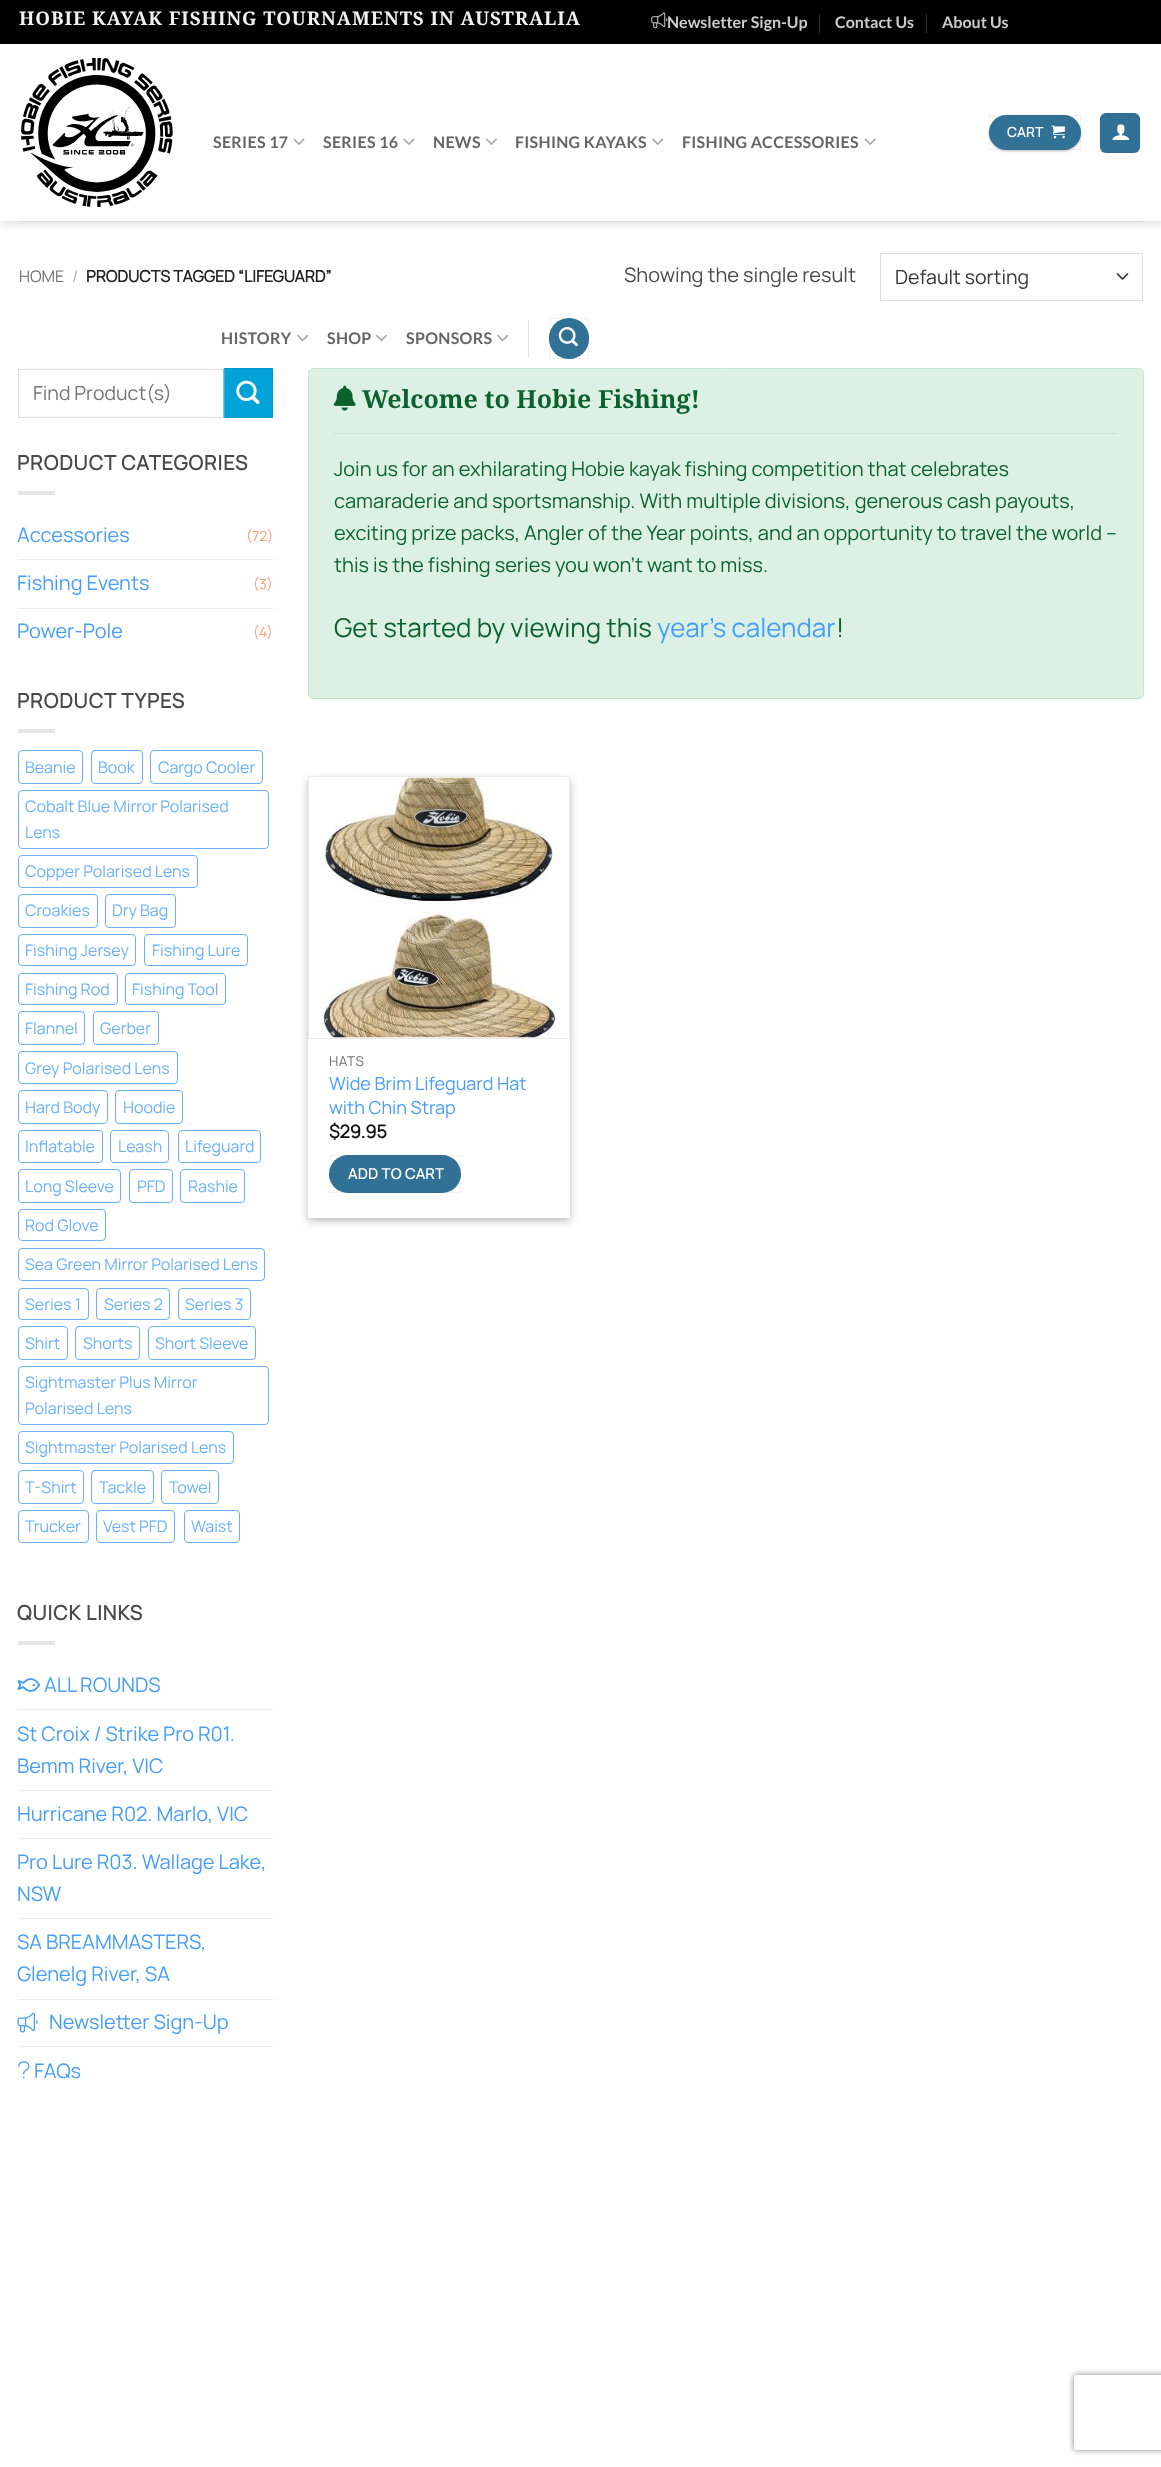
(async () => {
const canvas = document.querySelector("canvas")
canvas.width = 1161
canvas.height = 2467
const c = canvas.getContext("2d")
c.miterLimit = 4
c.fontKerning = "normal"
function T(s,x,y){c.fillText(s,x,y)}
function R(x,y,w,h){c.fillRect(x,y,w,h)}
function Q(x,y,w,h,r){c.beginPath();c.roundRect(x,y,w,h,r);c.fill()}
async function I(src,x,y,w,h){const img=new Image();img.src=src;await img.decode();c.drawImage(img,x,y,w,h)}
let path
c.fillStyle="#fff"
R(0,0,1161,2467)
c.save()
c.beginPath()
c.rect(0,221,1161,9)
c.clip()
c.fillStyle="#00000026"
c.filter="blur(6px)"
c.beginPath()
c.rect(1,1,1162,222)
c.fill()
c.filter="none"
c.restore()
c.fillStyle="#000"
R(0,0,1161,44)
c.letterSpacing="0.95px"
c.font="bold 18.75px Noto Serif"
c.fillStyle="#f1f1f1"
T("HOBIE KAYAK FISHING TOURNAMENTS IN AUSTRALIA",19,25)
await I("1.png",651,12,17,17)
c.letterSpacing="0px"
c.font="bold 16px Lato"
c.fillStyle="#ccc"
T("Newsletter Sign-Up",667,28)
c.fillStyle="#333"
R(819,14,1,19)
c.fillStyle="#ccc"
T("Contact Us",835,28)
c.fillStyle="#333"
R(926,14,1,19)
c.fillStyle="#ccc"
T("About Us",942,28)
await I("2.png",21,58,152,149)
c.fillStyle="#0000003d"
c.filter="blur(1px)"
c.beginPath()
c.roundRect(989,116,92,35,17.5)
c.fill()
c.filter="none"
c.fillStyle="#0000001f"
c.filter="blur(2px)"
c.beginPath()
c.roundRect(991,119,88,30,15)
c.fill()
c.filter="none"
c.fillStyle="#317196"
Q(989,115,92,35,17.5)
c.strokeStyle="#0000000d"
c.strokeRect(989.5,115.5,91,34)
c.letterSpacing="0.5px"
c.font="bold 13.5px Manrope"
c.fillStyle="#fff"
T("CART",1007,137)
await I("3.png",1051,125,14,14)
c.fillStyle="#317196"
Q(1100,113,40,40,6)
c.strokeRect(1100.5,113.5,39,39)
await I("4.png",1112,124,18,16)
c.letterSpacing="0.3px"
c.font="bold 16px Lato"
c.fillStyle="#656565"
T("SERIES 17",213,148)
await I("5.png",293,138,12,7)
T("SERIES 16",323,148)
await I("5.png",403,138,12,7)
T("NEWS",433,148)
await I("6.png",485,138,12,7)
T("FISHING KAYAKS",515,148)
await I("7.png",652,138,12,7)
T("FISHING ACCESSORIES",682,148)
await I("8.png",864,138,12,7)
T("HISTORY",221,344)
await I("9.png",297,334,12,8)
T("SHOP",327,344)
await I("10.png",375,334,12,8)
T("SPONSORS",406,344)
await I("9.png",497,334,12,8)
c.fillStyle="#e6e6e6"
R(528,320,1,38)
c.fillStyle="#317196"
Q(549,318,40,41,20)
c.strokeRect(549.5,318.5,39,40)
await I("11.png",558,327,20,20)
c.fillStyle="#ddd"
R(19,221,1124,1)
c.letterSpacing="0px"
c.font="200 16px Manrope"
c.fillStyle="#6e6e6e"
T("HOME",19,282)
c.fillStyle="#b2b2b2"
T("/",72,282)
c.font="bold 16px Manrope"
c.fillStyle="#222"
T("PRODUCTS TAGGED “LIFEGUARD”",86,282)
c.font="200 20px Manrope"
c.fillStyle="#4a4a4a"
T("Showing the single result",624,282)
path = new Path2D("M1117.5 274l5 5l5-5")
c.strokeStyle="#333"
c.lineWidth=1.7
c.lineCap="round"
c.lineJoin="round"
c.stroke(path)
c.strokeStyle="#ddd"
c.lineWidth=1
c.lineJoin="miter"
c.strokeRect(880.5,253.5,262,47)
c.font="200 19.5px Manrope"
c.fillStyle="#333"
T("Default sorting",895,284)
c.strokeRect(18.5,369.5,205,48)
c.fillStyle="#757575"
T("Find Product(s)",33,400)
c.fillStyle="#00a3d8"
c.beginPath()
c.rect(224.5,368.5,48,49)
c.fill()
c.strokeStyle="#009bcd"
c.stroke()
await I("12.png",236,380,24,24)
c.letterSpacing="1px"
c.font="bold 20px Manrope"
c.fillStyle="#4a4a4a"
T("PRODUCT CATEGORIES",17,470)
c.fillStyle="#e6e6e6"
R(18,491,37,4)
c.letterSpacing="0px"
c.font="200 20px Manrope"
c.fillStyle="#469ef8"
T("Accessories",17,542)
c.font="200 14px Manrope"
c.fillStyle="#ff9973"
T("(72)",246,541)
c.fillStyle="#ececec"
R(18,559,255,1)
c.font="200 20px Manrope"
c.fillStyle="#469ef8"
T("Fishing Events",17,590)
c.font="200 14px Manrope"
c.fillStyle="#ff9973"
T("(3)",253,589)
c.fillStyle="#ececec"
R(18,608,255,1)
c.font="200 20px Manrope"
c.fillStyle="#469ef8"
T("Power-Pole",17,638)
c.font="200 14px Manrope"
c.fillStyle="#ff9973"
T("(4)",253,637)
c.letterSpacing="1px"
c.font="bold 20px Manrope"
c.fillStyle="#4a4a4a"
T("PRODUCT TYPES",17,708)
c.fillStyle="#e6e6e6"
R(18,729,37,4)
c.beginPath()
c.roundRect(18.5,750.5,64,33,3.5)
c.strokeStyle="#6bb1f9"
c.stroke()
c.letterSpacing="0px"
c.font="200 16px Manrope"
c.fillStyle="#6bb1f9"
T("Beanie",25,773)
c.beginPath()
c.roundRect(91.5,750.5,51,33,3.5)
c.stroke()
T("Book",98,773)
c.beginPath()
c.roundRect(150.5,750.5,112,33,3.5)
c.stroke()
T("Cargo Cooler",158,773)
c.beginPath()
c.roundRect(18.5,790.5,250,58,3.5)
c.stroke()
T("Cobalt Blue Mirror Polarised",25,812)
T("Lens",25,838)
c.beginPath()
c.roundRect(18.5,855.5,179,32,3.5)
c.stroke()
T("Copper Polarised Lens",25,877)
c.beginPath()
c.roundRect(18.5,894.5,79,33,3.5)
c.stroke()
T("Croakies",25,916)
c.beginPath()
c.roundRect(105.5,894.5,70,33,3.5)
c.stroke()
T("Dry Bag",112,916)
c.beginPath()
c.roundRect(18.5,934.5,117,31,3.5)
c.stroke()
T("Fishing Jersey",25,956)
c.beginPath()
c.roundRect(144.5,934.5,103,31,3.5)
c.stroke()
T("Fishing Lure",152,956)
c.beginPath()
c.roundRect(18.5,973.5,99,31,3.5)
c.stroke()
T("Fishing Rod",25,995)
c.beginPath()
c.roundRect(125.5,973.5,100,31,3.5)
c.stroke()
T("Fishing Tool",132,995)
c.beginPath()
c.roundRect(18.5,1011.5,66,33,3.5)
c.stroke()
T("Flannel",25,1034)
c.beginPath()
c.roundRect(93.5,1011.5,65,33,3.5)
c.stroke()
T("Gerber",100,1034)
c.beginPath()
c.roundRect(18.5,1051.5,159,32,3.5)
c.stroke()
T("Grey Polarised Lens",25,1074)
c.beginPath()
c.roundRect(18.5,1090.5,89,33,3.5)
c.stroke()
T("Hard Body",25,1113)
c.beginPath()
c.roundRect(115.5,1090.5,67,33,3.5)
c.stroke()
T("Hoodie",123,1113)
c.beginPath()
c.roundRect(18.5,1130.5,84,32,3.5)
c.stroke()
T("Inflatable",25,1152)
c.beginPath()
c.roundRect(110.5,1130.5,58,32,3.5)
c.stroke()
T("Leash",118,1152)
c.beginPath()
c.roundRect(178.5,1130.5,82,32,3.5)
c.stroke()
T("Lifeguard",185,1152)
c.beginPath()
c.roundRect(18.5,1169.5,102,33,3.5)
c.stroke()
T("Long Sleeve",25,1192)
c.beginPath()
c.roundRect(129.5,1169.5,43,33,3.5)
c.stroke()
T("PFD",137,1192)
c.beginPath()
c.roundRect(180.5,1169.5,64,33,3.5)
c.stroke()
T("Rashie",188,1192)
c.beginPath()
c.roundRect(18.5,1209.5,87,31,3.5)
c.stroke()
T("Rod Glove",25,1231)
c.beginPath()
c.roundRect(18.5,1248.5,246,32,3.5)
c.stroke()
T("Sea Green Mirror Polarised Lens",25,1270)
c.beginPath()
c.roundRect(18.5,1288.5,70,31,3.5)
c.stroke()
T("Series 1",25,1310)
c.beginPath()
c.roundRect(96.5,1288.5,73,31,3.5)
c.stroke()
T("Series 2",104,1310)
c.beginPath()
c.roundRect(178.5,1288.5,72,31,3.5)
c.stroke()
T("Series 3",185,1310)
c.beginPath()
c.roundRect(18.5,1326.5,49,33,3.5)
c.stroke()
T("Shirt",25,1349)
c.beginPath()
c.roundRect(75.5,1326.5,64,33,3.5)
c.stroke()
T("Shorts",83,1349)
c.beginPath()
c.roundRect(148.5,1326.5,107,33,3.5)
c.stroke()
T("Short Sleeve",155,1349)
c.beginPath()
c.roundRect(18.5,1366.5,250,58,3.5)
c.stroke()
T("Sightmaster Plus Mirror",25,1388)
T("Polarised Lens",25,1414)
c.beginPath()
c.roundRect(18.5,1431.5,215,32,3.5)
c.stroke()
T("Sightmaster Polarised Lens",25,1453)
c.beginPath()
c.roundRect(18.5,1470.5,65,33,3.5)
c.stroke()
T("T-Shirt",25,1493)
c.beginPath()
c.roundRect(91.5,1470.5,62,33,3.5)
c.stroke()
T("Tackle",99,1493)
c.beginPath()
c.roundRect(161.5,1470.5,57,33,3.5)
c.stroke()
T("Towel",169,1493)
c.beginPath()
c.roundRect(18.5,1510.5,70,32,3.5)
c.stroke()
T("Trucker",25,1532)
c.beginPath()
c.roundRect(96.5,1510.5,78,32,3.5)
c.stroke()
T("Vest PFD",103,1532)
c.beginPath()
c.roundRect(184.5,1510.5,55,32,3.5)
c.stroke()
T("Waist",191,1532)
c.letterSpacing="1px"
c.font="bold 20px Manrope"
c.fillStyle="#4a4a4a"
T("QUICK LINKS",17,1620)
c.fillStyle="#e6e6e6"
R(18,1641,37,4)
await I("13.png",17,1678,23,14)
c.letterSpacing="0px"
c.font="200 20px Manrope"
c.fillStyle="#469ef8"
T("ALL ROUNDS",44,1692)
c.fillStyle="#ececec"
R(18,1709,255,1)
c.fillStyle="#469ef8"
T("St Croix / Strike Pro R01.",17,1741)
T("Bemm River, VIC",17,1773)
c.fillStyle="#ececec"
R(18,1790,255,1)
c.fillStyle="#469ef8"
T("Hurricane R02. Marlo, VIC",17,1821)
c.fillStyle="#ececec"
R(18,1838,255,1)
c.fillStyle="#469ef8"
T("Pro Lure R03. Wallage Lake,",17,1869)
T("NSW",17,1901)
c.fillStyle="#ececec"
R(18,1918,255,1)
c.fillStyle="#469ef8"
T("SA BREAMMASTERS,",17,1949)
T("Glenelg River, SA",17,1981)
c.fillStyle="#ececec"
R(18,1999,255,1)
await I("14.png",17,2012,21,21)
c.fillStyle="#469ef8"
T("Newsletter Sign-Up",49,2029)
c.fillStyle="#ececec"
R(18,2046,255,1)
await I("15.png",18,2061,12,18)
c.fillStyle="#469ef8"
T("FAQs",34,2078)
c.fillStyle="#dcf1e4"
c.beginPath()
c.roundRect(308.5,368.5,835,330,4.5)
c.fill()
c.strokeStyle="#c3e6cb"
c.stroke()
await I("16.png",333,385,23,26)
c.font="bold 25px Noto Serif"
c.fillStyle="#0c622e"
T("Welcome to Hobie Fishing!",362,408)
c.fillStyle="#c8e2d1"
R(334,433,784,1)
c.font="200 20px Manrope"
c.fillStyle="#0c622e"
T("Join us for an exhilarating Hobie kayak fishing competition that celebrates",334,476)
T("camaraderie and sportsmanship. With multiple divisions, generous cash payouts,",334,508)
T("exciting prize packs, Angler of the Year points, and an opportunity to travel the world –",334,540)
T("this is the fishing series you won’t want to miss.",334,572)
c.font="200 26px Manrope"
T("Get started by viewing this",334,637)
c.fillStyle="#469ef8"
T("year's calendar",657,637)
c.fillStyle="#0c622e"
T("!",836,637)
c.fillStyle="#0000003b"
c.filter="blur(4px)"
c.beginPath()
c.rect(308,780,262,441)
c.fill()
c.filter="none"
c.fillStyle="#00000029"
c.filter="blur(4px)"
c.beginPath()
c.rect(313,785,252,431)
c.fill()
c.filter="none"
c.fillStyle="#fff"
R(308,777,262,441)
c.strokeStyle="#ebebeb"
c.strokeRect(308.5,776.5,261,262)
await I("17.png",322,777,234,261)
c.letterSpacing="0.5px"
c.font="200 13.5px Manrope"
c.fillStyle="#6e6e6e"
T("HATS",329,1066)
c.letterSpacing="0px"
c.font="200 18px Manrope"
c.fillStyle="#469ef8"
T("Wide Brim Lifeguard Hat",329,1090)
T("with Chin Strap",329,1114)
c.font="bold 18px Manrope"
c.fillStyle="#111"
T("$29.95",329,1138)
c.fillStyle="#317196"
Q(329,1155,132,38,19)
c.strokeStyle="#0000000d"
c.strokeRect(329.5,1155.5,131,37)
c.letterSpacing="0.5px"
c.font="bold 14.5px Manrope"
c.fillStyle="#fff"
T("ADD TO CART",348,1179)
c.save()
path = new Path2D("M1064 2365h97v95h-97zm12.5 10h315c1.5 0 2.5 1 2.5 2.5v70c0 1.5-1 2.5-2.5 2.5h-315c-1.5 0-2.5-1-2.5-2.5v-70c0-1.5 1-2.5 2.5-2.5z")
c.clip(path,"evenodd")
c.fillStyle="#808080"
c.filter="blur(3px)"
c.beginPath()
c.roundRect(1074,2375,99,75,2.5)
c.fill()
c.filter="none"
c.restore()
})()
